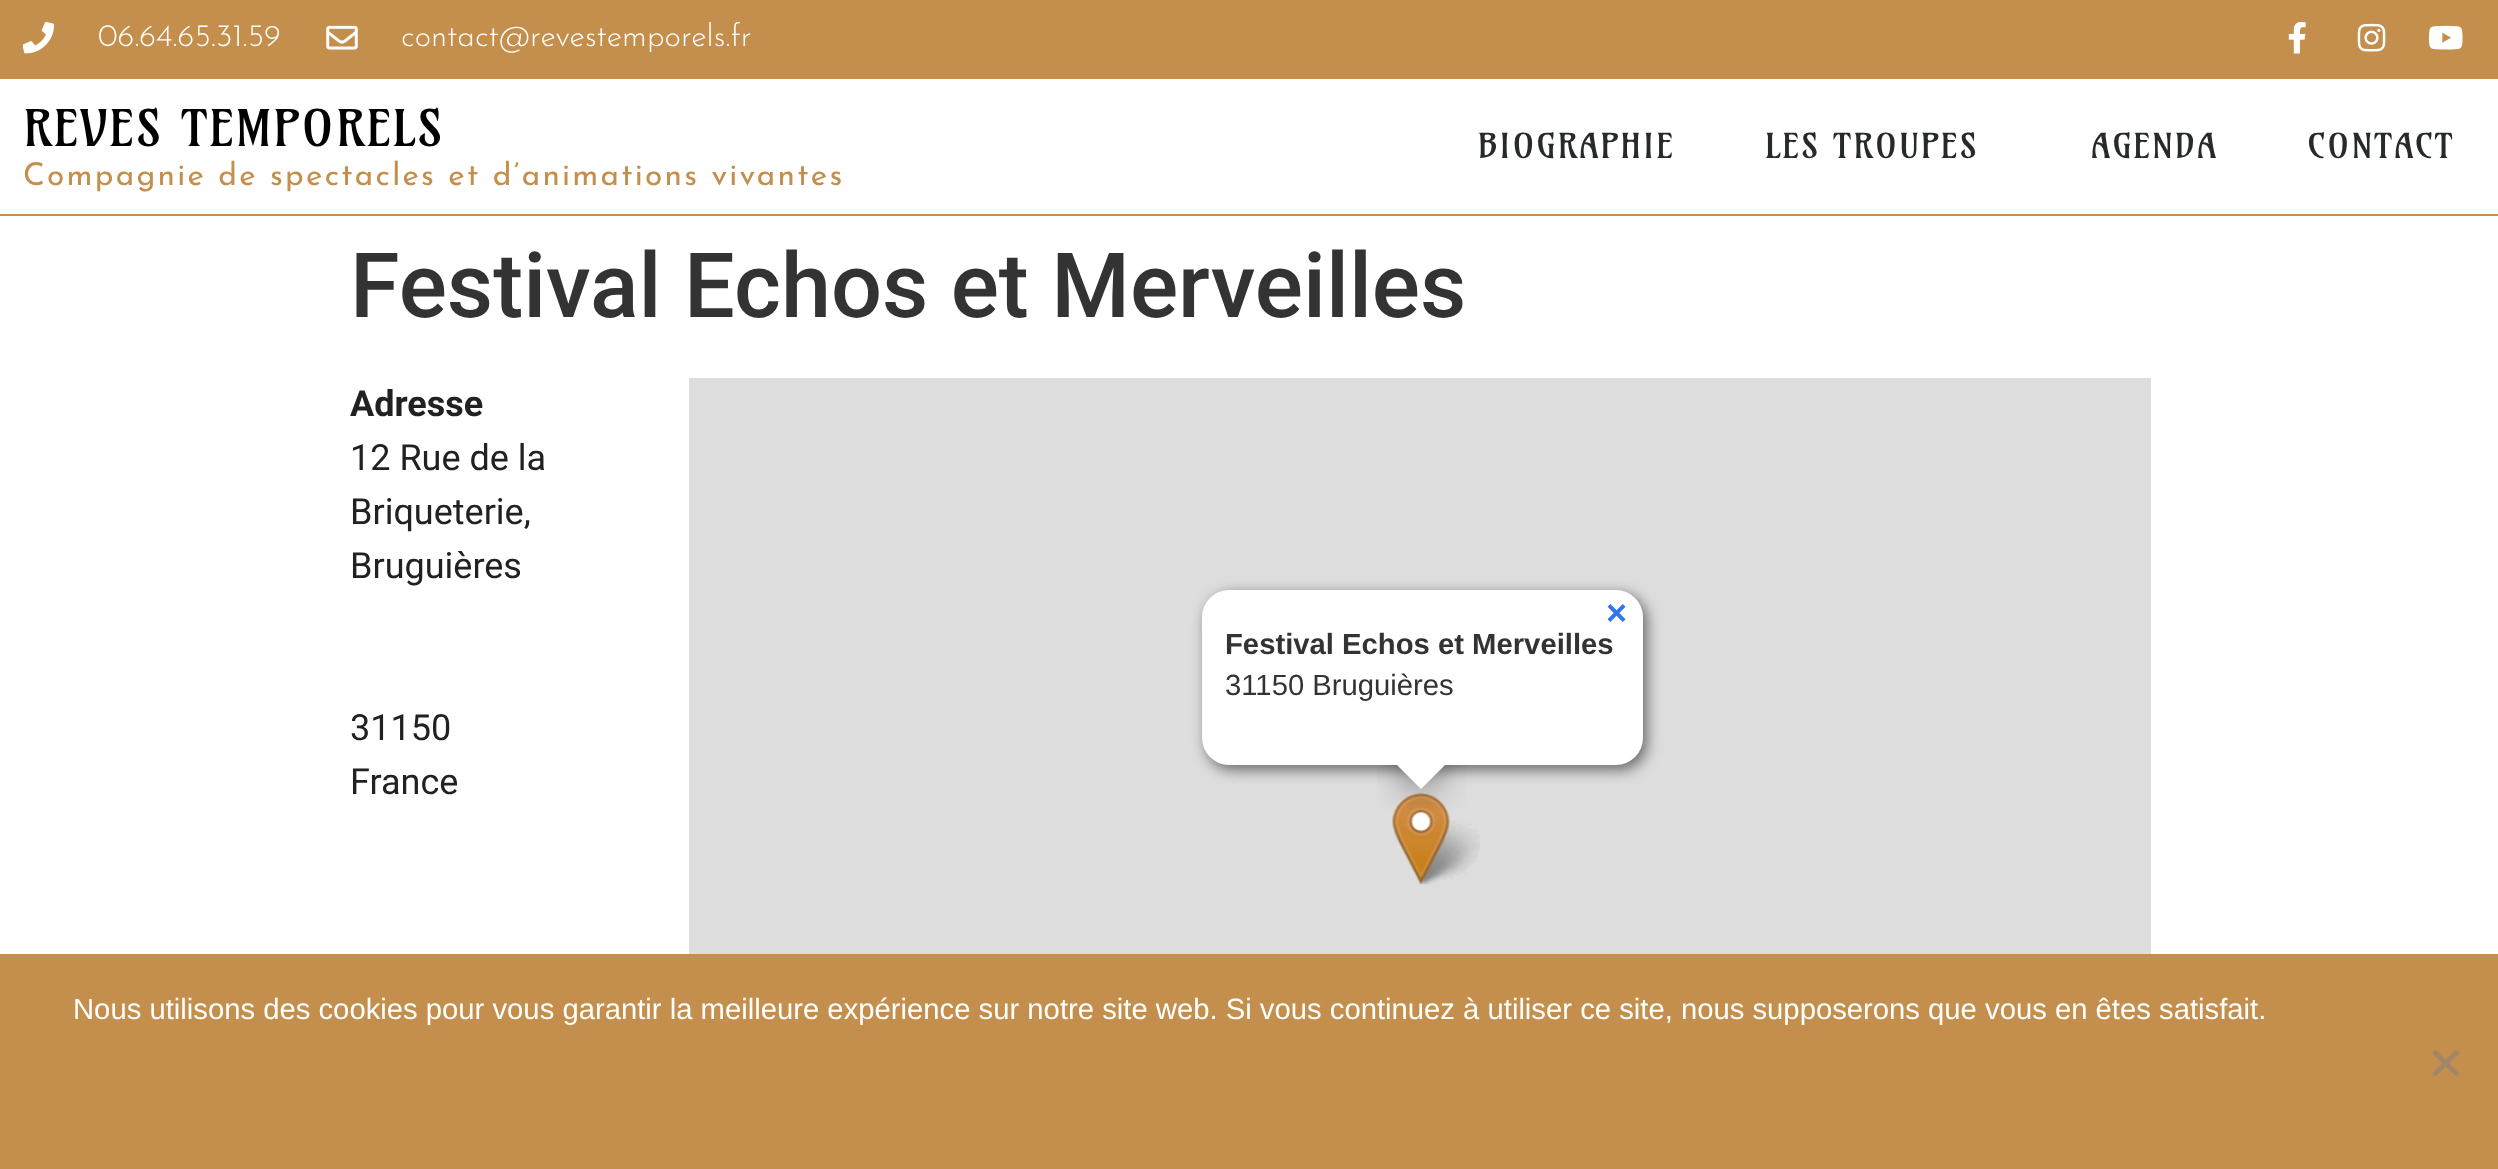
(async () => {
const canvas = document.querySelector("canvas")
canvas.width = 2498
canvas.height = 1169
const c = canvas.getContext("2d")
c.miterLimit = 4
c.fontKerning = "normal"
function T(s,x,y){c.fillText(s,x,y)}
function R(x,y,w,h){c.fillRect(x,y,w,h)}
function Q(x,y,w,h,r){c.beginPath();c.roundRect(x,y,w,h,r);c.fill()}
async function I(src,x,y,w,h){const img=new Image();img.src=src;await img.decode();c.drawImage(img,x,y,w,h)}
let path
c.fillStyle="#fff"
R(0,0,2498,1169)
c.fillStyle="#c48e4c"
R(0,0,2498,79)
await I("1.png",23,22,32,32)
c.font="300 31.5px Josefin Sans"
c.fillStyle="#fff"
T("06.64.65.31.59",98,46)
await I("2.png",326,25,32,25)
T("contact@revestemporels.fr",401,46)
await I("3.png",2288,21,18,33)
await I("4.png",2357,23,29,29)
await I("5.png",2428,25,35,25)
c.fillStyle="#c48e4c"
R(0,214,2498,2)
c.letterSpacing="2.25px"
c.font="49.5px Amarante"
c.fillStyle="#000"
T("REVES TEMPORELS",23,146)
c.font="31.5px Josefin Sans"
c.fillStyle="#c48e4c"
T("Compagnie de spectacles et d’animations vivantes",23,185)
c.font="33.75px Amarante"
c.fillStyle="#262a2b"
T("BIOGRAPHIE",1478,158)
T("LES TROUPES",1765,158)
T("AGENDA",2091,158)
T("CONTACT",2308,158)
c.letterSpacing="0px"
c.font="500 90px Roboto"
c.fillStyle="#333"
T("Festival Echos et Merveilles",350,317)
c.font="bold 36px Roboto"
c.fillStyle="#212121"
T("Adresse",350,416)
c.font="36px Roboto"
T("12 Rue de la",350,470)
T("Briqueterie,",350,524)
T("Bruguières",350,578)
T("31150",350,740)
T("France",350,794)
c.fillStyle="#ddd"
R(689,378,1462,576)
c.fillStyle="#696969"
c.filter="blur(7px)"
c.beginPath()
c.roundRect(1206,594,441,176,27)
c.fill()
c.filter="none"
c.fillStyle="#fff"
Q(1202,590,441,175,27)
c.font="bold 36px Liberation Sans"
c.fillStyle="#3372f0"
T("×",1606,625)
c.font="bold 29.25px Liberation Sans"
c.fillStyle="#333"
T("Festival Echos et Merveilles",1225,654)
c.font="29.25px Liberation Sans"
T("31150 Bruguières",1225,695)
await I("7.png",1415,820,65,65)
await I("6.png",1392,793,58,92)
c.save()
c.beginPath()
c.rect(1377,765,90,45)
c.clip()
c.fillStyle="#00000066"
c.filter="blur(16px)"
c.beginPath()
c.rect(1402,749,38,39)
c.fill()
c.filter="none"
c.restore()
c.save()
c.beginPath()
c.rect(1377,765,90,45)
c.clip()
c.fillStyle="#fff"
path = new Path2D("M1421 735l27 27l-27 27l-27-27z")
c.fill(path)
c.restore()
c.fillStyle="#c48e4c"
R(0,954,2498,215)
c.fillStyle="#fff"
T("Nous utilisons des cookies pour vous garantir la meilleure expérience sur notre site web. Si vous continuez à utiliser ce site, nous supposerons que vous en êtes satisfait.",73,1019)
c.fillStyle="#a28766"
path = new Path2D("M2456 1049.5l3.5 3.5l-24 23.5l-3.5-3z")
c.fill(path)
path = new Path2D("M2432 1053l3.5-3.5l24 24l-3.5 3z")
c.fill(path)
})()
